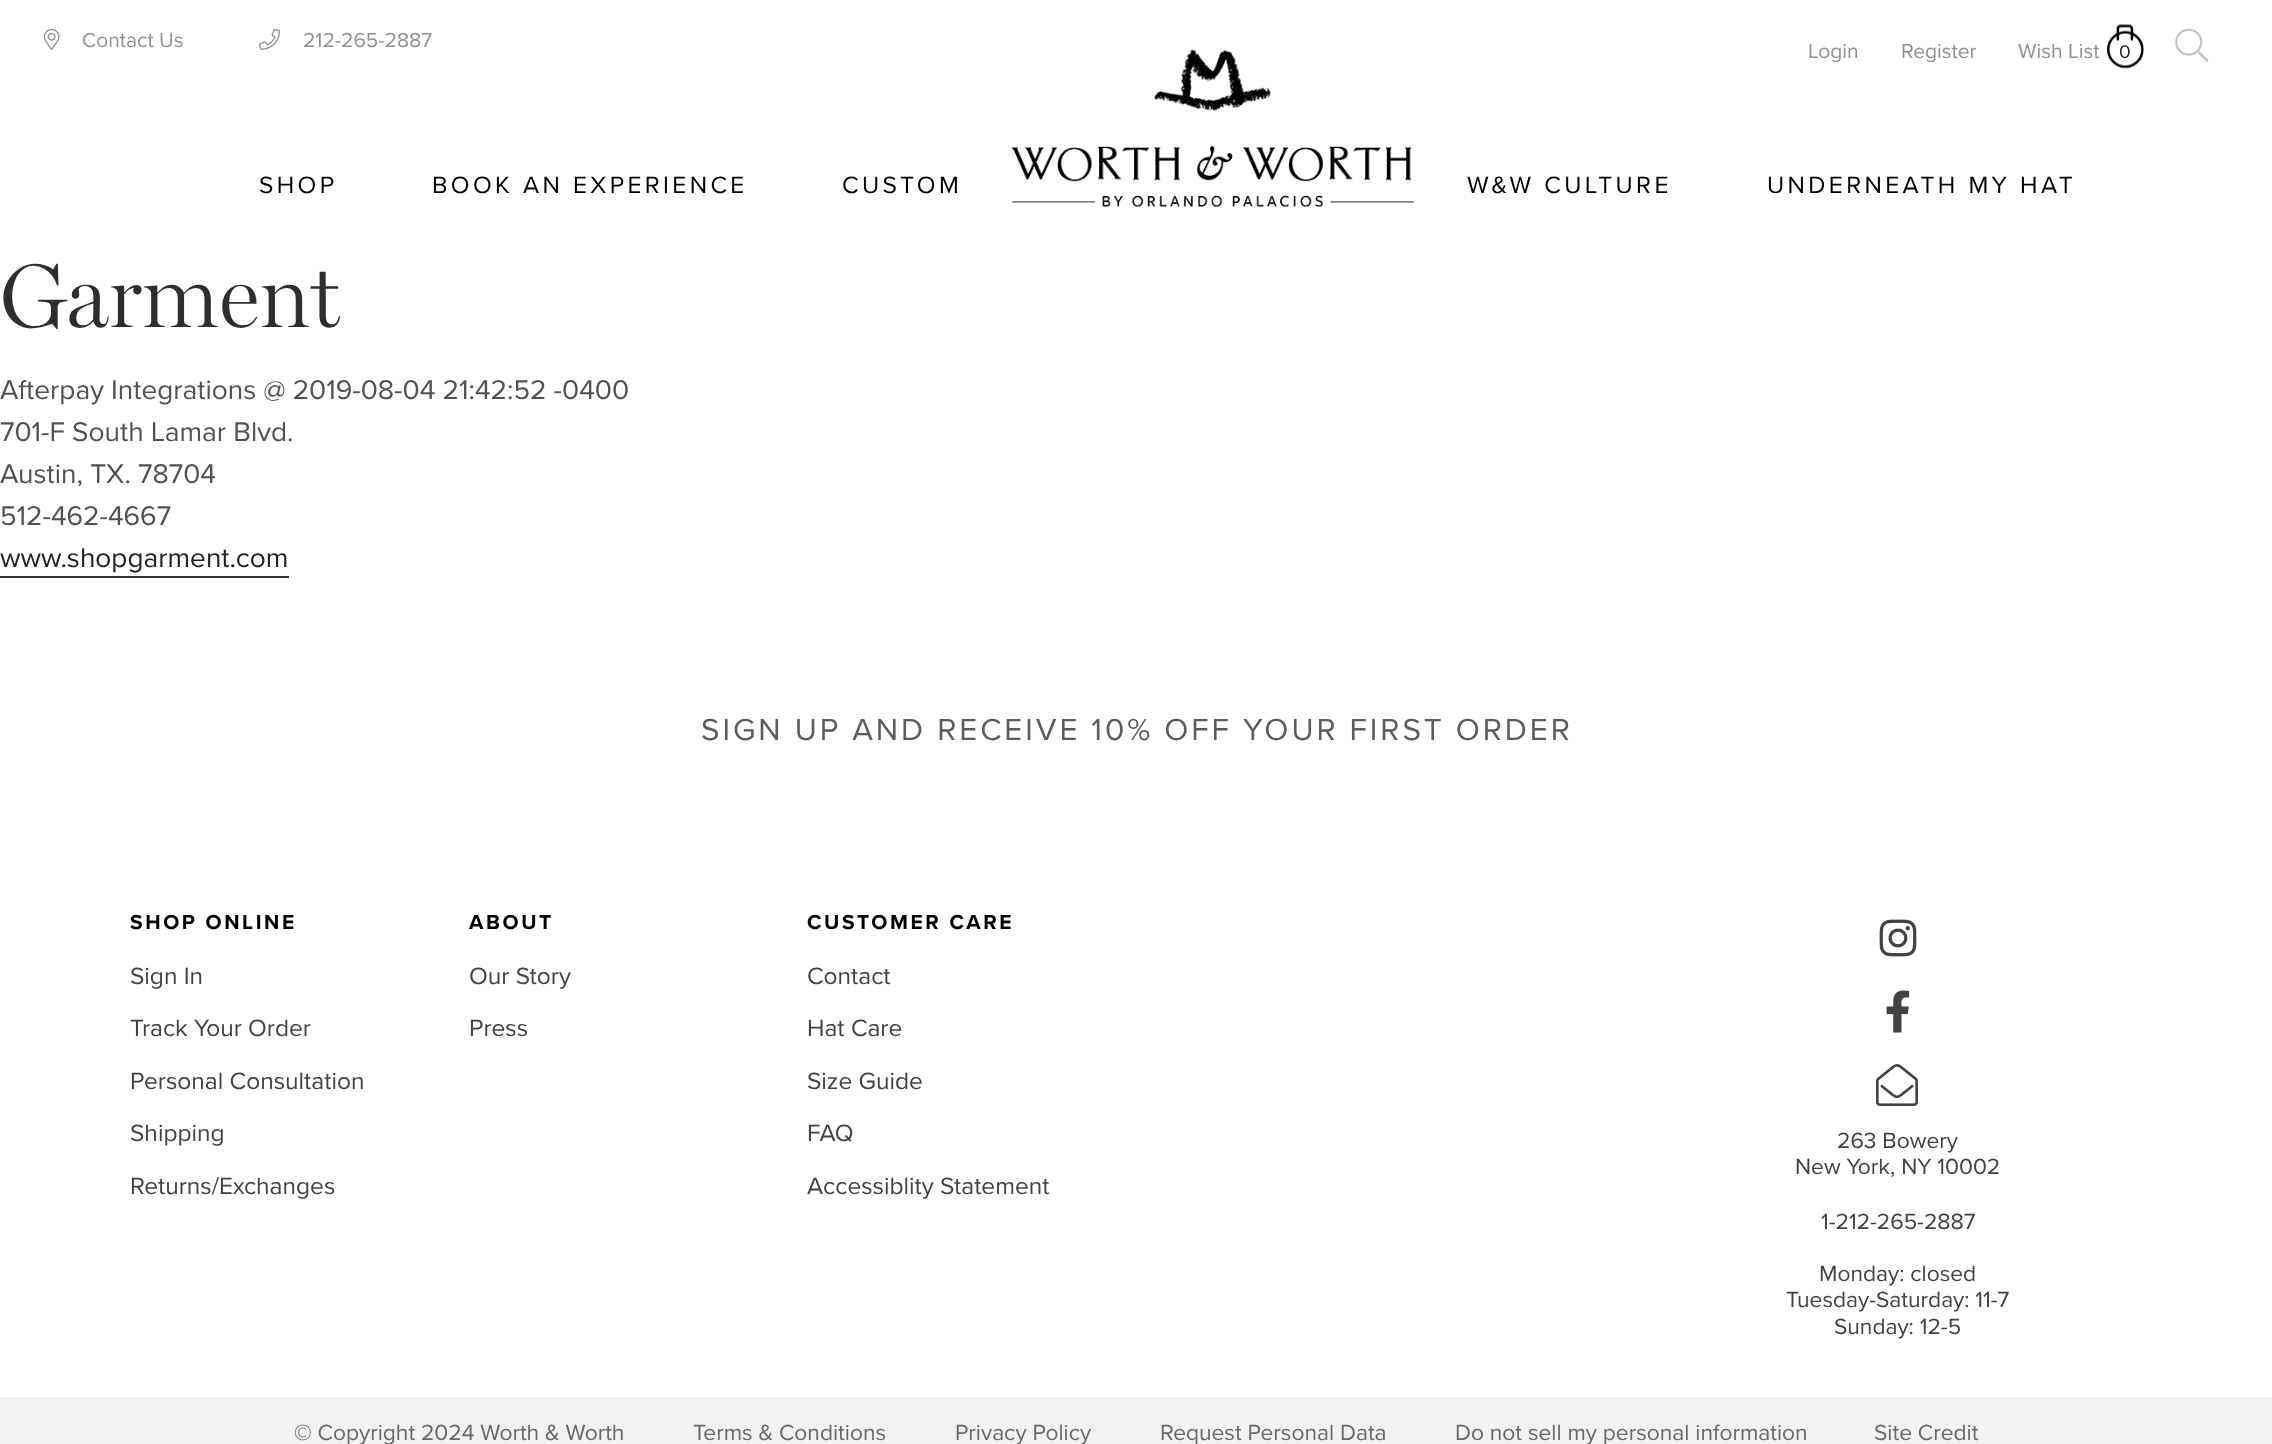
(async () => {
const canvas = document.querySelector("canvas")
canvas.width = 2272
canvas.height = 1444
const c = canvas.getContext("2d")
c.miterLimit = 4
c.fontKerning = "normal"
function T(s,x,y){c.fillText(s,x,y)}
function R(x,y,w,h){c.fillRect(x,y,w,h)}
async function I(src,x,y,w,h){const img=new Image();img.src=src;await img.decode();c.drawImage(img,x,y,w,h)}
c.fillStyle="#fff"
R(0,0,2272,1444)
await I("1.png",43,28,17,22)
c.font="21px Proxima Nova"
c.fillStyle="#919191"
T("Contact Us",82,47)
await I("2.png",259,28,21,22)
T("212-265-2887",303,47)
T("Login",1808,58)
T("Register",1901,58)
T("Wish List",2018,58)
await I("3.png",2107,24,37,45)
c.font="19px Proxima Nova"
c.fillStyle="#222"
T("0",2119,58)
await I("4.png",2175,28,34,34)
c.letterSpacing="3.4px"
c.font="24.5px Proxima Nova"
c.fillStyle="#000"
T("SHOP",259,193)
T("BOOK AN EXPERIENCE",432,193)
T("CUSTOM",842,193)
await I("5.png",1011,49,403,158)
T("W&W CULTURE",1467,193)
T("UNDERNEATH MY HAT",1767,193)
c.letterSpacing="0px"
c.font="300 91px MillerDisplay"
c.fillStyle="#2e2e2e"
T("Garment",0,327)
c.font="28px Proxima Nova"
c.fillStyle="#515151"
T("Afterpay Integrations @ 2019-08-04 21:42:52 -0400",0,399)
T("701-F South Lamar Blvd.",0,441)
T("Austin, TX. 78704",0,483)
T("512-462-4667",0,525)
c.fillStyle="#222"
T("www.shopgarment.com",0,567)
c.fillStyle="#333"
R(0,576,289,2)
c.letterSpacing="2.95px"
c.font="31.5px Proxima Nova"
c.fillStyle="#5c5c5c"
T("SIGN UP AND RECEIVE 10% OFF YOUR FIRST ORDER",701,740)
c.letterSpacing="2.6px"
c.font="bold 21px Proxima Nova"
c.fillStyle="#000"
T("SHOP ONLINE",130,929)
c.letterSpacing="0px"
c.font="24.5px Proxima Nova"
c.fillStyle="#424242"
T("Sign In",130,984)
T("Track Your Order",130,1036)
T("Personal Consultation",130,1089)
T("Shipping",130,1141)
T("Returns/Exchanges",130,1194)
c.letterSpacing="2.6px"
c.font="bold 21px Proxima Nova"
c.fillStyle="#000"
T("ABOUT",469,929)
c.letterSpacing="0px"
c.font="24.5px Proxima Nova"
c.fillStyle="#424242"
T("Our Story",469,984)
T("Press",469,1036)
c.letterSpacing="2.6px"
c.font="bold 21px Proxima Nova"
c.fillStyle="#000"
T("CUSTOMER CARE",807,929)
c.letterSpacing="0px"
c.font="24.5px Proxima Nova"
c.fillStyle="#424242"
T("Contact",807,984)
T("Hat Care",807,1036)
T("Size Guide",807,1089)
T("FAQ",807,1141)
T("Accessiblity Statement",807,1194)
await I("6.png",1879,919,38,38)
await I("7.png",1886,990,24,43)
await I("8.png",1876,1064,42,42)
c.font="22.75px Proxima Nova"
T("263 Bowery",1837,1148)
T("New York, NY 10002",1795,1174)
T("1-212-265-2887",1821,1229)
T("Monday: closed",1819,1281)
T("Tuesday-Saturday: 11-7",1786,1307)
T("Sunday: 12-5",1834,1334)
c.fillStyle="#f2f2f2"
R(0,1397,2272,47)
c.fillStyle="#686868"
T("© Copyright 2024 Worth & Worth",294,1440)
T("Terms & Conditions",693,1440)
T("Privacy Policy",955,1440)
T("Request Personal Data",1160,1440)
T("Do not sell my personal information",1455,1440)
T("Site Credit",1874,1440)
})()
